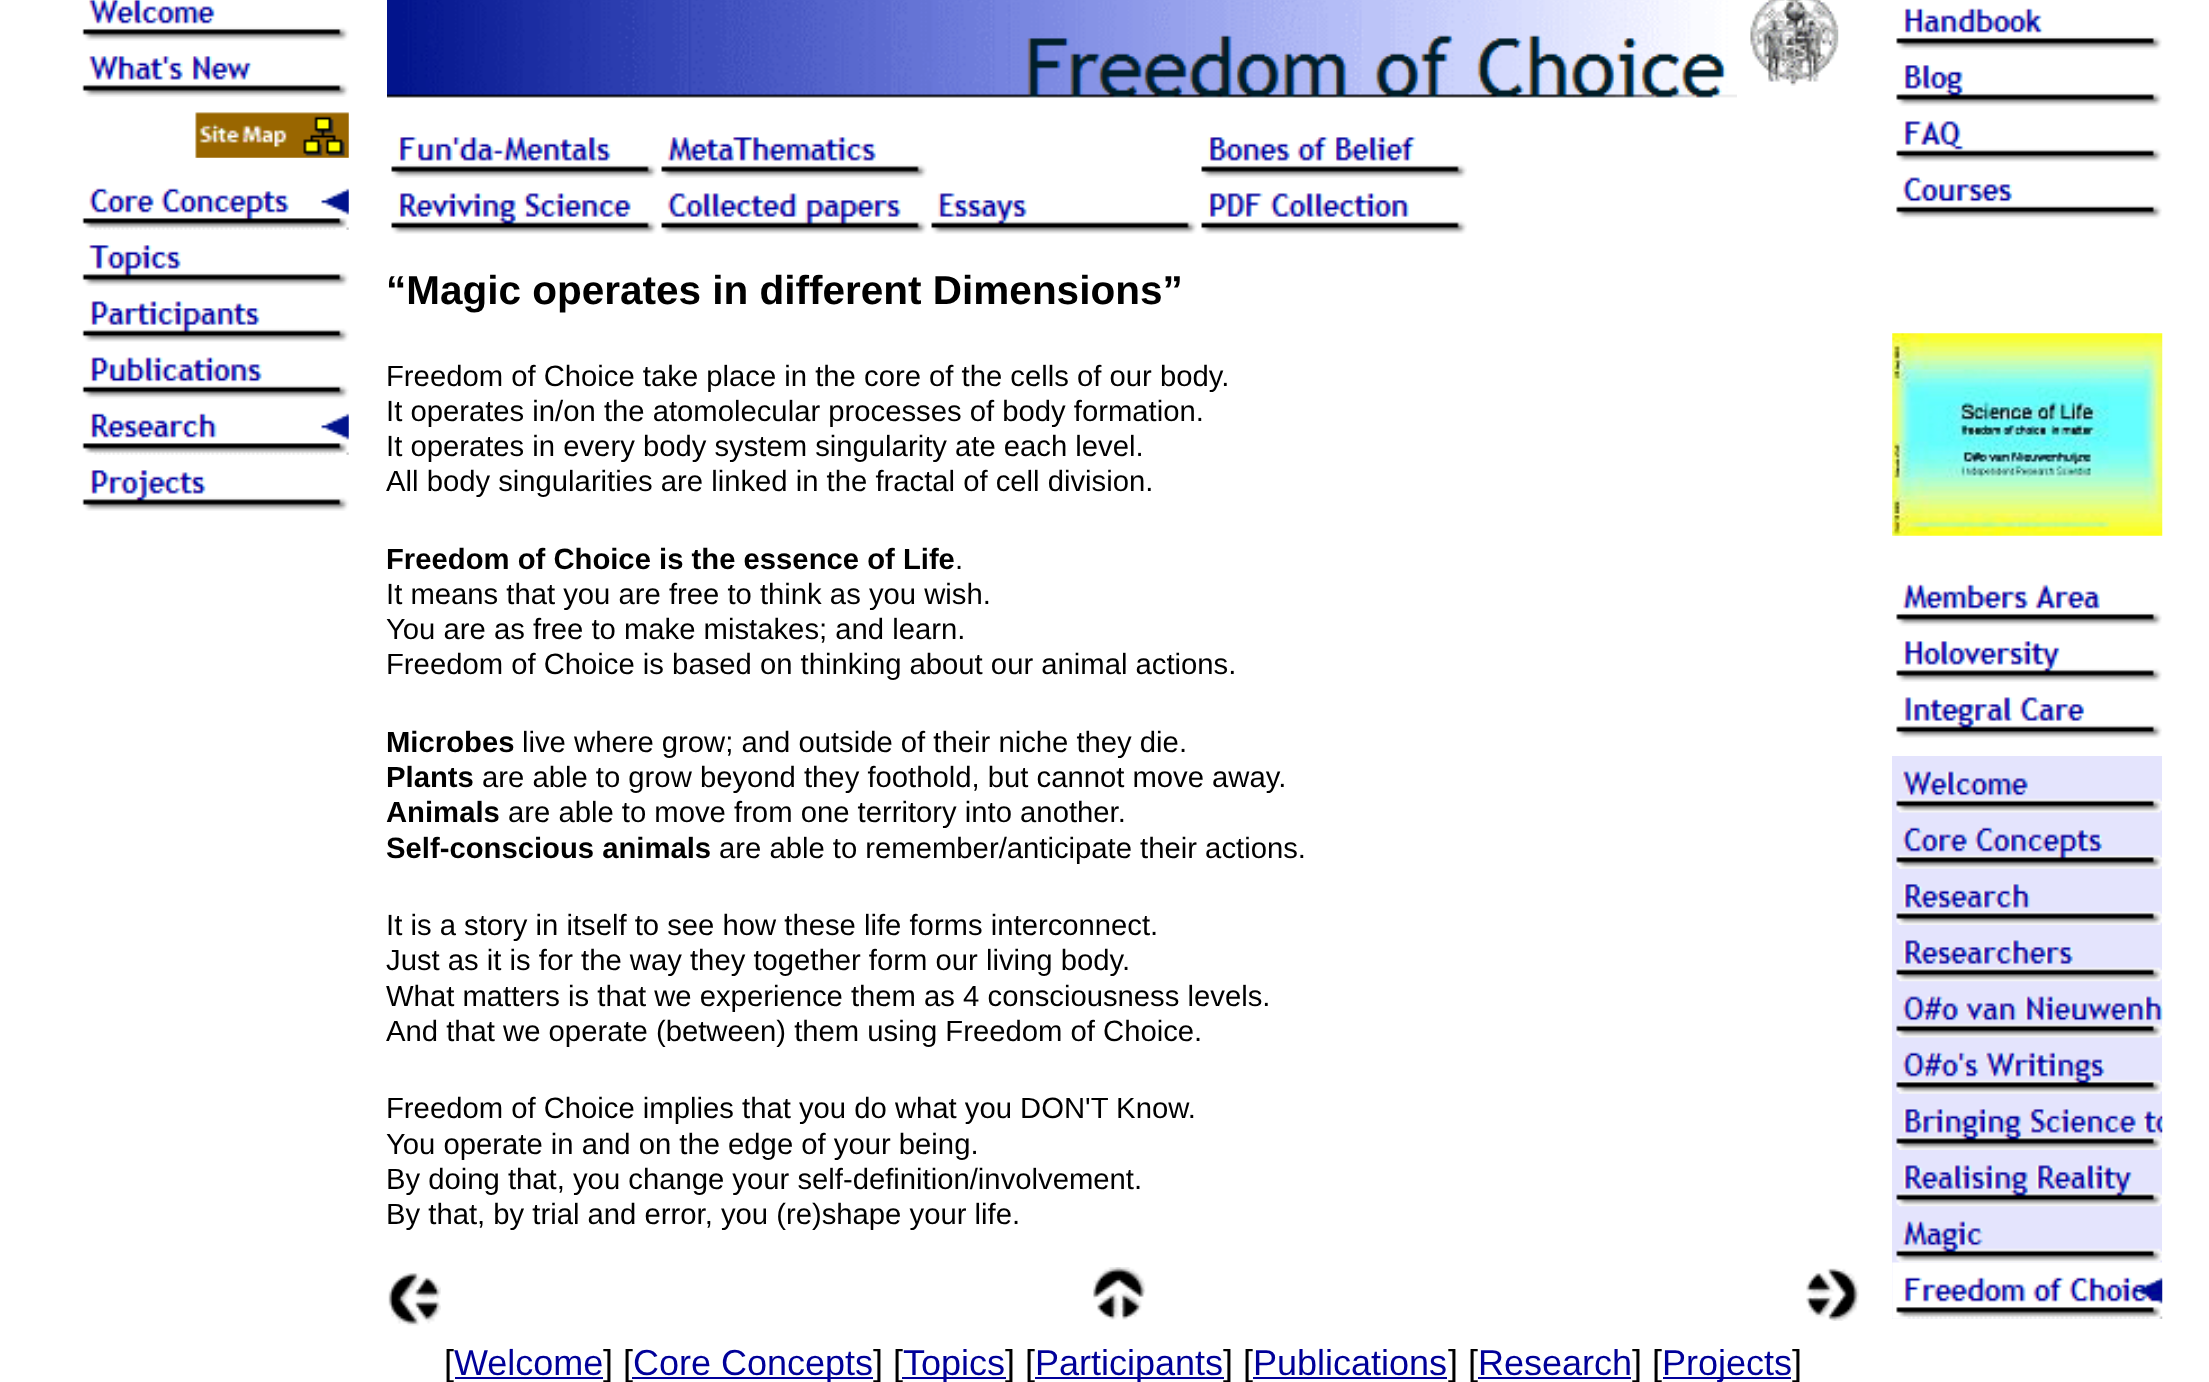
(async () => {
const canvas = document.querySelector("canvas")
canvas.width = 2209
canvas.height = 1382
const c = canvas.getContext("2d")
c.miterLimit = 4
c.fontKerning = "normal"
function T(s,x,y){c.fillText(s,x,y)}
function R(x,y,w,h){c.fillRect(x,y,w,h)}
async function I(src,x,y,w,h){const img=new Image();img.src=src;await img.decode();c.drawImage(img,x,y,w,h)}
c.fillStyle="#fff"
R(0,0,2209,1382)
await I("1.png",82,0,267,41)
await I("2.png",82,56,267,41)
await I("3.png",195,112,154,46)
await I("4.png",82,188,267,42)
await I("5.png",82,245,267,41)
await I("6.png",82,301,267,41)
await I("7.png",82,357,267,42)
await I("8.png",82,413,267,42)
await I("9.png",82,470,267,41)
await I("10.png",387,0,1350,98)
await I("11.png",1750,0,89,86)
await I("12.png",391,137,266,41)
await I("13.png",661,137,266,41)
await I("14.png",1201,137,266,41)
await I("15.png",391,193,266,41)
await I("16.png",661,193,266,41)
await I("17.png",931,193,266,41)
await I("18.png",1201,193,266,41)
c.font="bold 40.5px Liberation Sans"
c.fillStyle="#000"
T("“Magic operates in different Dimensions”",386,304)
c.font="29.25px Liberation Sans"
T("Freedom of Choice take place in the core of the cells of our body.",386,386)
T("It operates in/on the atomolecular processes of body formation.",386,421)
T("It operates in every body system singularity ate each level.",386,456)
T("All body singularities are linked in the fractal of cell division.",386,491)
c.font="bold 29.25px Liberation Sans"
T("Freedom of Choice is the essence of Life",386,569)
c.font="29.25px Liberation Sans"
T(".",955,569)
T("It means that you are free to think as you wish.",386,604)
T("You are as free to make mistakes; and learn.",386,639)
T("Freedom of Choice is based on thinking about our animal actions.",386,674)
c.font="bold 29.25px Liberation Sans"
T("Microbes",386,752)
c.font="29.25px Liberation Sans"
T("live where grow; and outside of their niche they die.",522,752)
c.font="bold 29.25px Liberation Sans"
T("Plants",386,787)
c.font="29.25px Liberation Sans"
T("are able to grow beyond they foothold, but cannot move away.",482,787)
c.font="bold 29.25px Liberation Sans"
T("Animals",386,822)
c.font="29.25px Liberation Sans"
T("are able to move from one territory into another.",508,822)
c.font="bold 29.25px Liberation Sans"
T("Self-conscious animals",386,858)
c.font="29.25px Liberation Sans"
T("are able to remember/anticipate their actions.",719,858)
T("It is a story in itself to see how these life forms interconnect.",386,935)
T("Just as it is for the way they together form our living body.",386,970)
T("What matters is that we experience them as 4 consciousness levels.",386,1006)
T("And that we operate (between) them using Freedom of Choice.",386,1041)
T("Freedom of Choice implies that you do what you DON'T Know.",386,1118)
T("You operate in and on the edge of your being.",386,1154)
T("By doing that, you change your self-definition/involvement.",386,1189)
T("By that, by trial and error, you (re)shape your life.",386,1224)
await I("19.png",388,1273,53,53)
await I("20.png",1093,1267,53,53)
await I("21.png",1806,1268,53,53)
c.font="36px Liberation Sans"
T("[",444,1375)
c.fillStyle="#009"
T("Welcome",454,1375)
R(455,1377,148,2)
c.fillStyle="#000"
T("] [",603,1375)
c.fillStyle="#009"
R(632,1377,241,2)
T("Core Concepts",633,1375)
c.fillStyle="#000"
T("] [",873,1375)
c.fillStyle="#009"
R(902,1377,104,2)
T("Topics",903,1375)
c.fillStyle="#000"
T("] [",1005,1375)
c.fillStyle="#009"
R(1035,1377,189,2)
T("Participants",1035,1375)
c.fillStyle="#000"
T("] [",1223,1375)
c.fillStyle="#009"
T("Publications",1253,1375)
R(1253,1377,194,2)
c.fillStyle="#000"
T("] [",1448,1375)
c.fillStyle="#009"
T("Research",1478,1375)
R(1478,1377,153,2)
c.fillStyle="#000"
T("] [",1632,1375)
c.fillStyle="#009"
R(1663,1377,128,2)
T("Projects",1662,1375)
c.fillStyle="#000"
T("]",1792,1375)
await I("22.png",1896,8,266,42)
await I("23.png",1896,65,266,41)
await I("24.png",1896,121,266,41)
await I("25.png",1896,177,266,42)
await I("26.png",1892,333,271,203)
await I("27.png",1896,584,266,42)
await I("28.png",1896,641,266,41)
await I("29.png",1896,697,266,41)
c.fillStyle="#e4e4fd"
R(1892,756,270,563)
await I("30.png",1896,771,266,42)
await I("31.png",1896,827,266,42)
await I("32.png",1896,884,266,41)
await I("33.png",1896,940,266,42)
await I("34.png",1896,996,267,42)
await I("35.png",1896,1052,266,42)
await I("36.png",1896,1109,267,41)
await I("37.png",1896,1165,266,42)
await I("38.png",1896,1221,266,42)
await I("39.png",1892,1262,271,57)
})()
